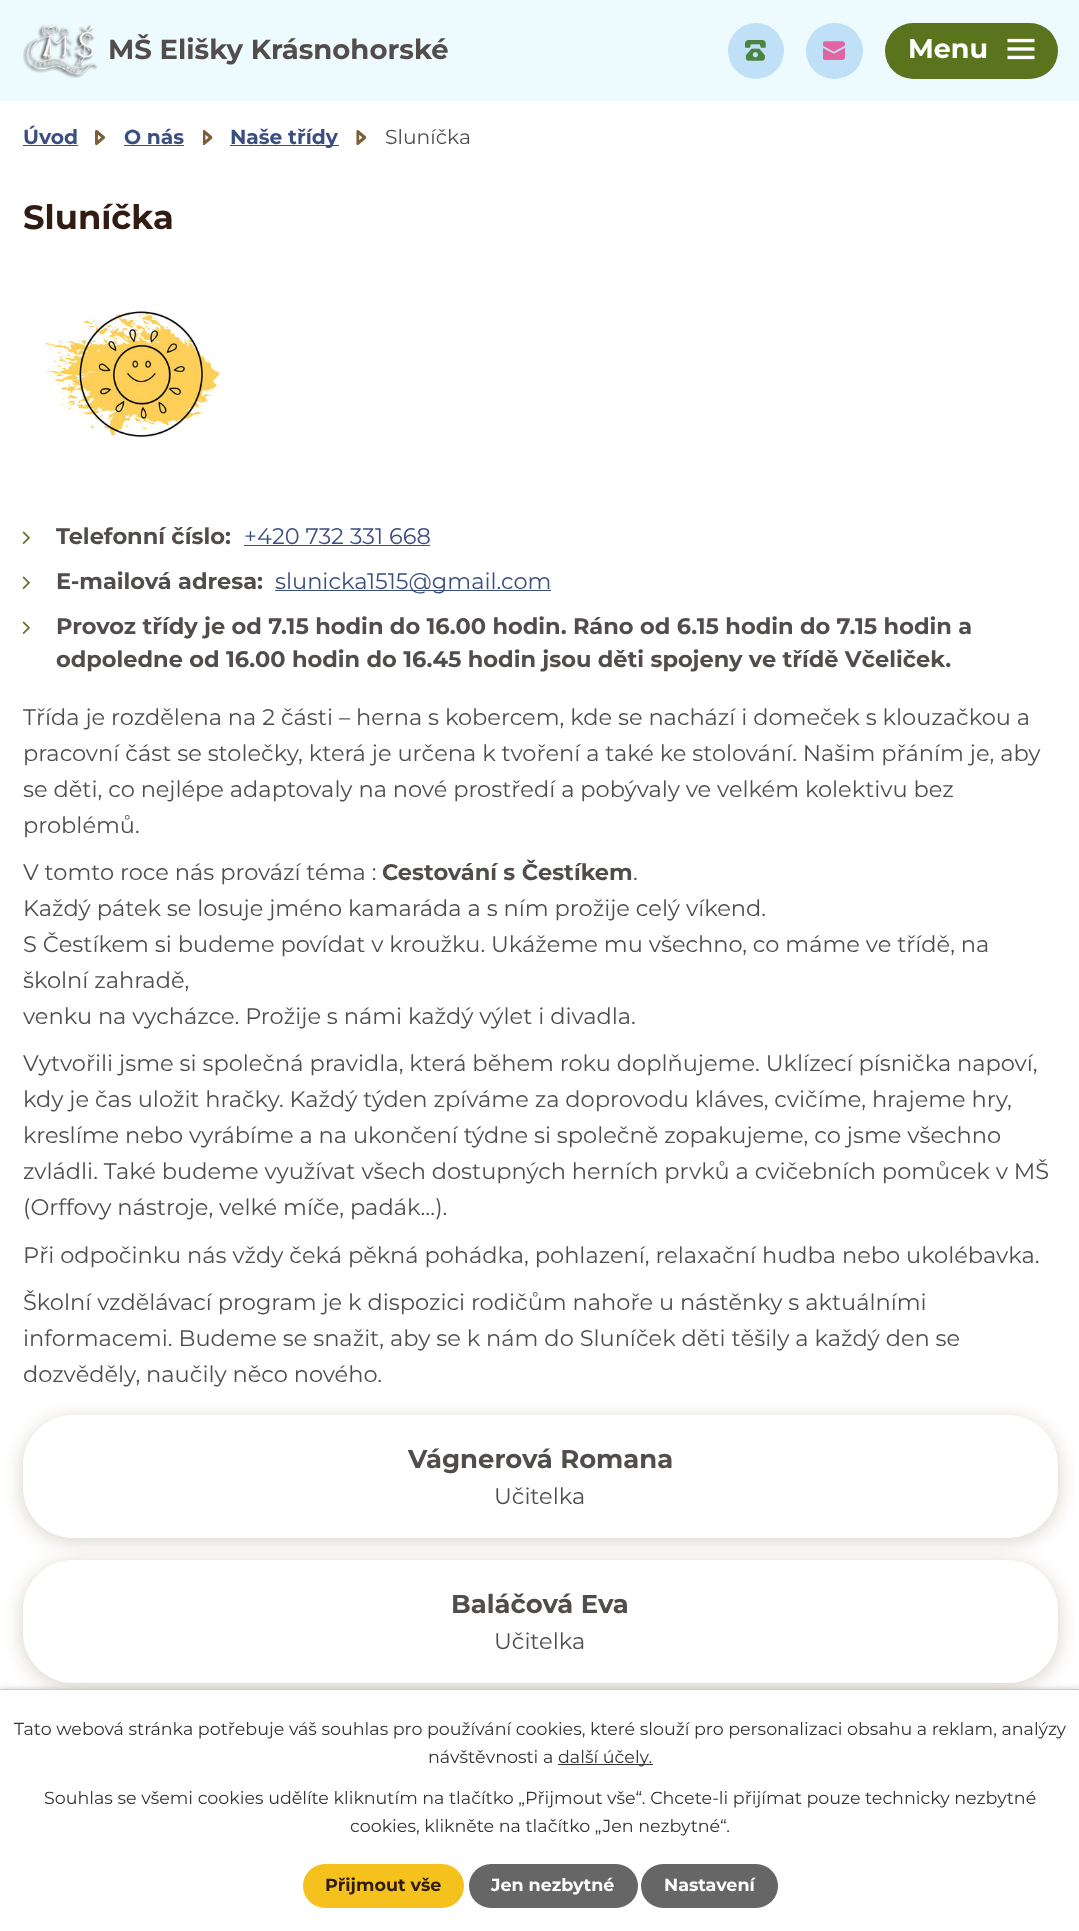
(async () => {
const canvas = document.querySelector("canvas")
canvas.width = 1079
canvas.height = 1931
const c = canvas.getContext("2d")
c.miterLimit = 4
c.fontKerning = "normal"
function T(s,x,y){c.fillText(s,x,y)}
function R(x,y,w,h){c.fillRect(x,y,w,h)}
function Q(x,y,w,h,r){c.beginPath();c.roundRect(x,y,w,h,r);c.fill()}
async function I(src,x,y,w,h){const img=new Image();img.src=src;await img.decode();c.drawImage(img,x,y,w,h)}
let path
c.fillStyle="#fff"
R(0,0,1079,1931)
c.fillStyle="#edfbff"
R(0,0,1079,101)
await I("1.png",23,24,76,54)
c.font="bold 27.5px Montserrat"
c.fillStyle="#524d4c"
T("MŠ Elišky Krásnohorské",108,59)
c.fillStyle="#bfe0f6"
c.beginPath()
c.arc(756,51,28,0,7)
c.fill()
await I("2.png",745,40,21,21)
Q(806,23,57,56,28)
await I("3.png",823,41,22,19)
c.fillStyle="#5a741e"
Q(885,23,173,56,28)
c.font="bold 27px Montserrat"
c.fillStyle="#fff"
T("Menu",908,58)
await I("4.png",1007,38,28,22)
c.font="bold 20.25px Montserrat"
c.fillStyle="#3b4e80"
T("Úvod",23,144)
R(23,145,55,1)
await I("5.png",95,130,10,15)
T("O nás",124,144)
R(124,145,60,1)
await I("6.png",203,130,10,15)
R(230,145,109,1)
T("Naše třídy",230,144)
await I("7.png",356,130,10,15)
c.font="20.25px Montserrat"
c.fillStyle="#524d4c"
T("Sluníčka",385,144)
c.font="bold 33.75px Montserrat"
c.fillStyle="#311c13"
T("Sluníčka",23,229)
await I("8.png",44,310,179,130)
await I("9.png",22,531,8,13)
c.font="bold 22.5px Montserrat"
c.fillStyle="#524d4c"
T("Telefonní číslo:",56,544)
c.font="22.5px Montserrat"
c.fillStyle="#3b4e80"
T("+420 732 331 668",244,544)
R(244,545,186,1)
await I("9.png",22,576,8,13)
c.font="bold 22.5px Montserrat"
c.fillStyle="#524d4c"
T("E-mailová adresa:",56,589)
c.fillStyle="#3b4e80"
R(275,590,276,1)
c.font="22.5px Montserrat"
T("slunicka1515@gmail.com",275,589)
await I("9.png",22,621,8,13)
c.font="bold 22.5px Montserrat"
c.fillStyle="#524d4c"
T("Provoz třídy je od 7.15 hodin do 16.00 hodin. Ráno od 6.15 hodin do 7.15 hodin a",56,634)
T("odpoledne od 16.00 hodin do 16.45 hodin jsou děti spojeny ve třídě Včeliček.",56,667)
c.font="22.5px Montserrat"
T("Třída je rozdělena na 2 části – herna s kobercem, kde se nachází i domeček s klouzačkou a",23,725)
T("pracovní část se stolečky, která je určena k tvoření a také ke stolování. Našim přáním je, aby",23,761)
T("se děti, co nejlépe adaptovaly na nové prostředí a pobývaly ve velkém kolektivu bez",23,797)
T("problémů.",23,833)
T("V tomto roce nás provází téma :",23,880)
c.font="bold 22.5px Montserrat"
T("Cestování s Čestíkem",382,880)
c.font="22.5px Montserrat"
T(".",633,880)
T("Každý pátek se losuje jméno kamaráda a s ním prožije celý víkend.",23,916)
T("S Čestíkem si budeme povídat v kroužku. Ukážeme mu všechno, co máme ve třídě, na",23,952)
T("školní zahradě,",23,988)
T("venku na vycházce. Prožije s námi každý výlet i divadla.",23,1024)
T("Vytvořili jsme si společná pravidla, která během roku doplňujeme. Uklízecí písnička napoví,",23,1071)
T("kdy je čas uložit hračky. Každý týden zpíváme za doprovodu kláves, cvičíme, hrajeme hry,",23,1107)
T("kreslíme nebo vyrábíme a na ukončení týdne si společně zopakujeme, co jsme všechno",23,1143)
T("zvládli. Také budeme využívat všech dostupných herních prvků a cvičebních pomůcek v MŠ",23,1179)
T("(Orffovy nástroje, velké míče, padák…).",23,1215)
T("Při odpočinku nás vždy čeká pěkná pohádka, pohlazení, relaxační hudba nebo ukolébavka.",23,1263)
T("Školní vzdělávací program je k dispozici rodičům nahoře u nástěnky s aktuálními",23,1310)
T("informacemi. Budeme se snažit, aby se k nám do Sluníček děti těšily a každý den se",23,1346)
T("dozvěděly, naučily něco nového.",23,1382)
c.save()
path = new Path2D("M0 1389h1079v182h-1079zm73 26h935c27.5 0 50 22.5 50 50v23c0 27.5-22.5 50-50 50h-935c-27.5 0-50-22.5-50-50v-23c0-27.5 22.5-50 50-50z")
c.clip(path,"evenodd")
c.fillStyle="#654b2640"
c.filter="blur(9.5px)"
c.beginPath()
c.roundRect(23,1419,1035,122,50)
c.fill()
c.filter="none"
c.restore()
c.font="bold 25.9px Montserrat"
T("Vágnerová Romana",408,1468)
c.font="22.5px Montserrat"
T("Učitelka",494,1504)
c.save()
path = new Path2D("M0 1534h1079v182h-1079zm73 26h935c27.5 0 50 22.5 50 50v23c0 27.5-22.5 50-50 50h-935c-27.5 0-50-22.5-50-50v-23c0-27.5 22.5-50 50-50z")
c.clip(path,"evenodd")
c.fillStyle="#654b2640"
c.filter="blur(9.5px)"
c.beginPath()
c.roundRect(23,1564,1035,122,50)
c.fill()
c.filter="none"
c.restore()
c.font="bold 25.9px Montserrat"
T("Baláčová Eva",451,1613)
c.font="22.5px Montserrat"
T("Učitelka",494,1649)
c.fillStyle="#00000033"
c.filter="blur(3px)"
c.beginPath()
c.rect(0,1689,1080,242)
c.fill()
c.filter="none"
c.fillStyle="#fff"
R(0,1690,1079,241)
c.fillStyle="#ccc"
R(0,1689,1079,1)
c.font="17.5px Montserrat"
c.fillStyle="#333"
T("Tato webová stránka potřebuje váš souhlas pro používání cookies, které slouží pro personalizaci obsahu a reklam, analýzy",14,1735)
T("návštěvnosti a",428,1763)
R(558,1764,95,1)
T("další účely.",558,1763)
T("Souhlas se všemi cookies udělíte kliknutím na tlačítko „Přijmout vše“. Chcete-li přijímat pouze technicky nezbytné",44,1804)
T("cookies, klikněte na tlačítko „Jen nezbytné“.",350,1832)
c.fillStyle="#f5c11d"
Q(303,1864,161,44,22)
c.font="bold 17.5px Montserrat"
c.fillStyle="#311c13"
T("Přijmout vše",325,1891)
c.fillStyle="#666"
Q(469,1864,169,44,22)
c.fillStyle="#fff"
T("Jen nezbytné",491,1891)
c.fillStyle="#666"
Q(641,1864,137,44,22)
c.fillStyle="#fff"
T("Nastavení",664,1891)
})()
